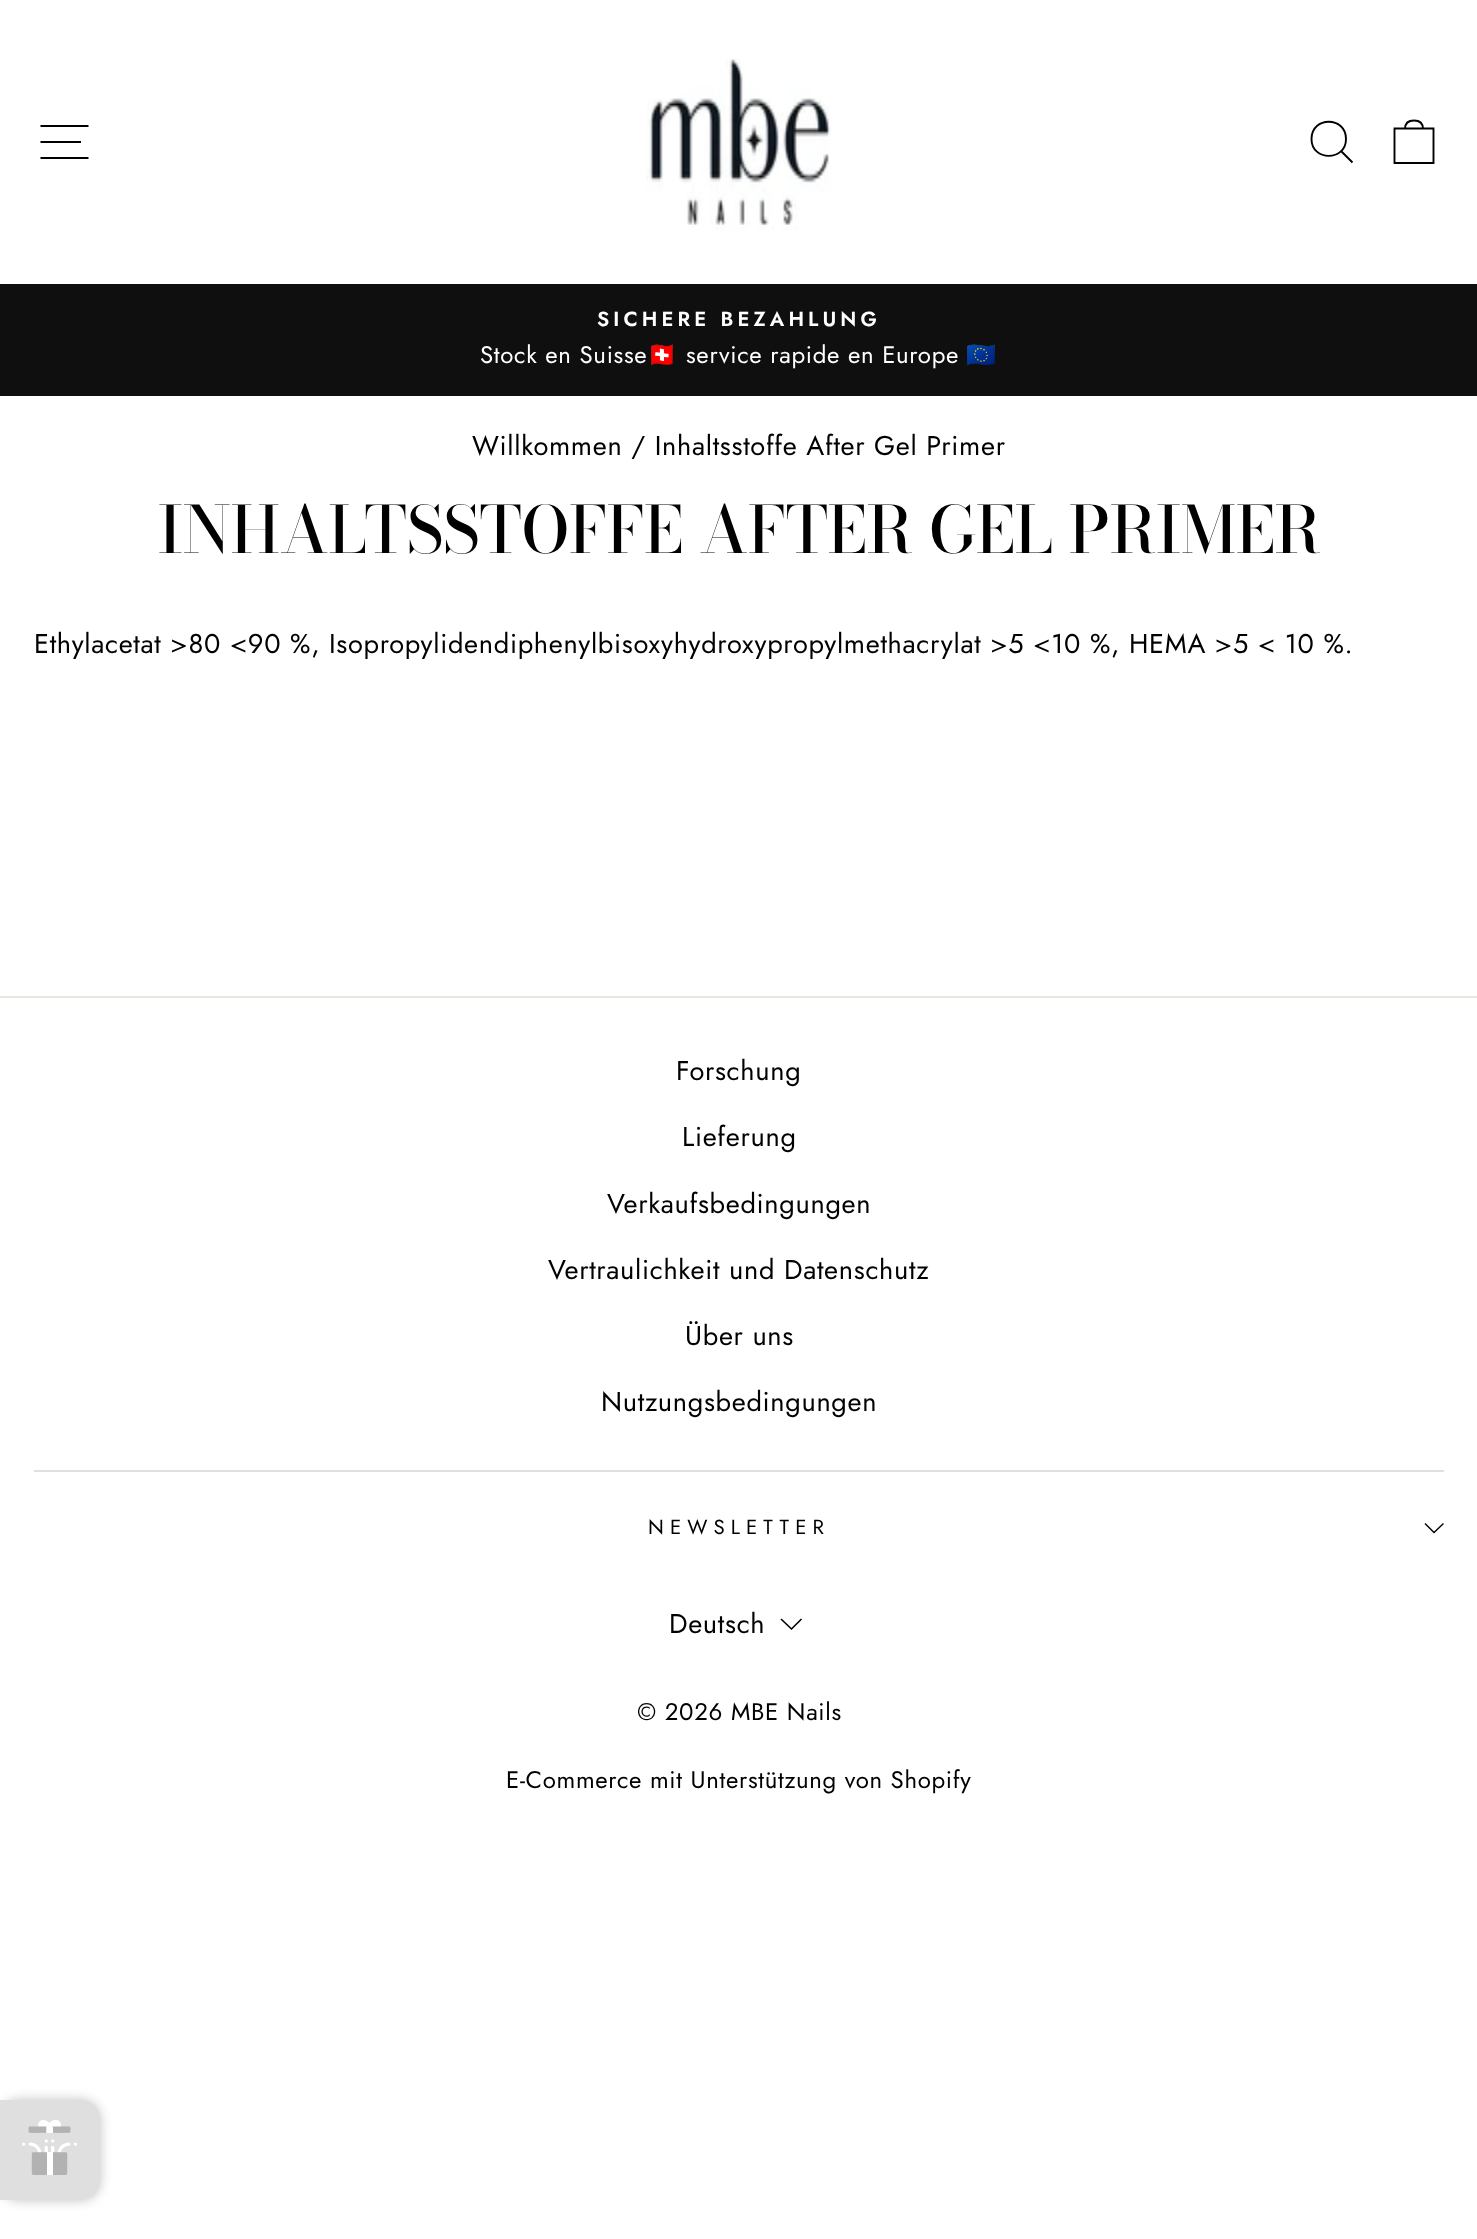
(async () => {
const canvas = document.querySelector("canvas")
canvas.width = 1477
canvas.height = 2239
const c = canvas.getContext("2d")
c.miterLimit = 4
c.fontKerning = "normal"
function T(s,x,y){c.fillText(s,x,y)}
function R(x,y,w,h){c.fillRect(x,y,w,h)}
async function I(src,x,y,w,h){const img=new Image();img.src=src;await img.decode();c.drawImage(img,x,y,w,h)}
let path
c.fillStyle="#fff"
R(0,0,1477,2239)
path = new Path2D("M40.5 126h48m-48 16h40.5m-40.5 16h48")
c.strokeStyle="#000"
c.lineWidth=1.9
c.stroke(path)
await I("1.png",646,59,185,171)
path = new Path2D("M1346 139c0 22.5-34.5 22.5-34.5 0c0-23 34.5-23 34.5 0zm6.5 23.5l-11-11")
c.stroke(path)
path = new Path2D("M1394.5 128.5h39v34.5h-39zm10.5 .5c0-7 4-8.5 9-8.5c5 0 9 1.5 9 8.5")
c.stroke(path)
c.fillStyle="#0f0f0f"
R(0,284,1477,112)
c.letterSpacing="4.1px"
c.font="600 20.4px Jost"
c.fillStyle="#fff"
T("SICHERE BEZAHLUNG",597,326)
c.letterSpacing="0.68px"
c.font="24px Jost"
T("Stock en Suisse",480,363)
c.font="24px Noto Color Emoji"
T("🇨🇭",647,363)
c.font="24px Jost"
T("service rapide en Europe",686,363)
c.font="24px Noto Color Emoji"
T("🇪🇺",966,363)
c.font="27.2px Jost"
c.fillStyle="#000"
T("Willkommen / Inhaltsstoffe After Gel Primer",472,455)
c.letterSpacing="0px"
c.font="500 64.6px Bodoni Moda"
T("INHALTSSTOFFE AFTER GEL PRIMER",158,553)
c.letterSpacing="0.68px"
c.font="27.2px Jost"
T("Ethylacetat >80 <90 %, Isopropylidendiphenylbisoxyhydroxypropylmethacrylat >5 <10 %, HEMA >5 < 10 %.",34,653)
c.fillStyle="#e8e8e1"
R(0,996,1477,2)
c.fillStyle="#000"
T("Forschung",676,1080)
T("Lieferung",682,1146)
T("Verkaufsbedingungen",607,1213)
T("Vertraulichkeit und Datenschutz",548,1279)
T("Über uns",685,1345)
T("Nutzungsbedingungen",601,1411)
c.fillStyle="#e0e0e0"
R(34,1470,1410,2)
c.letterSpacing="6.1px"
c.font="20.4px Jost"
c.fillStyle="#000"
T("NEWSLETTER",648,1534)
path = new Path2D("M1425 1523.5l9 9l9.5-9")
c.lineWidth=1.4
c.stroke(path)
c.letterSpacing="0.68px"
c.font="27.2px Jost"
T("Deutsch",669,1633)
path = new Path2D("M781 1619l10.5 10l10-10")
c.lineWidth=1.6
c.stroke(path)
c.font="24px Jost"
T("© 2026 MBE Nails",637,1720)
T("E-Commerce mit Unterstützung von Shopify",506,1788)
c.fillStyle="#00000040"
c.filter="blur(6px)"
c.beginPath()
c.roundRect(0,2100,100,100,20)
c.fill()
c.filter="none"
c.fillStyle="#dfdfdf"
c.beginPath()
c.roundRect(0,2100,100,100,[0,20,20,0])
c.fill()
await I("2.png",22,2120,55,55)
})()
